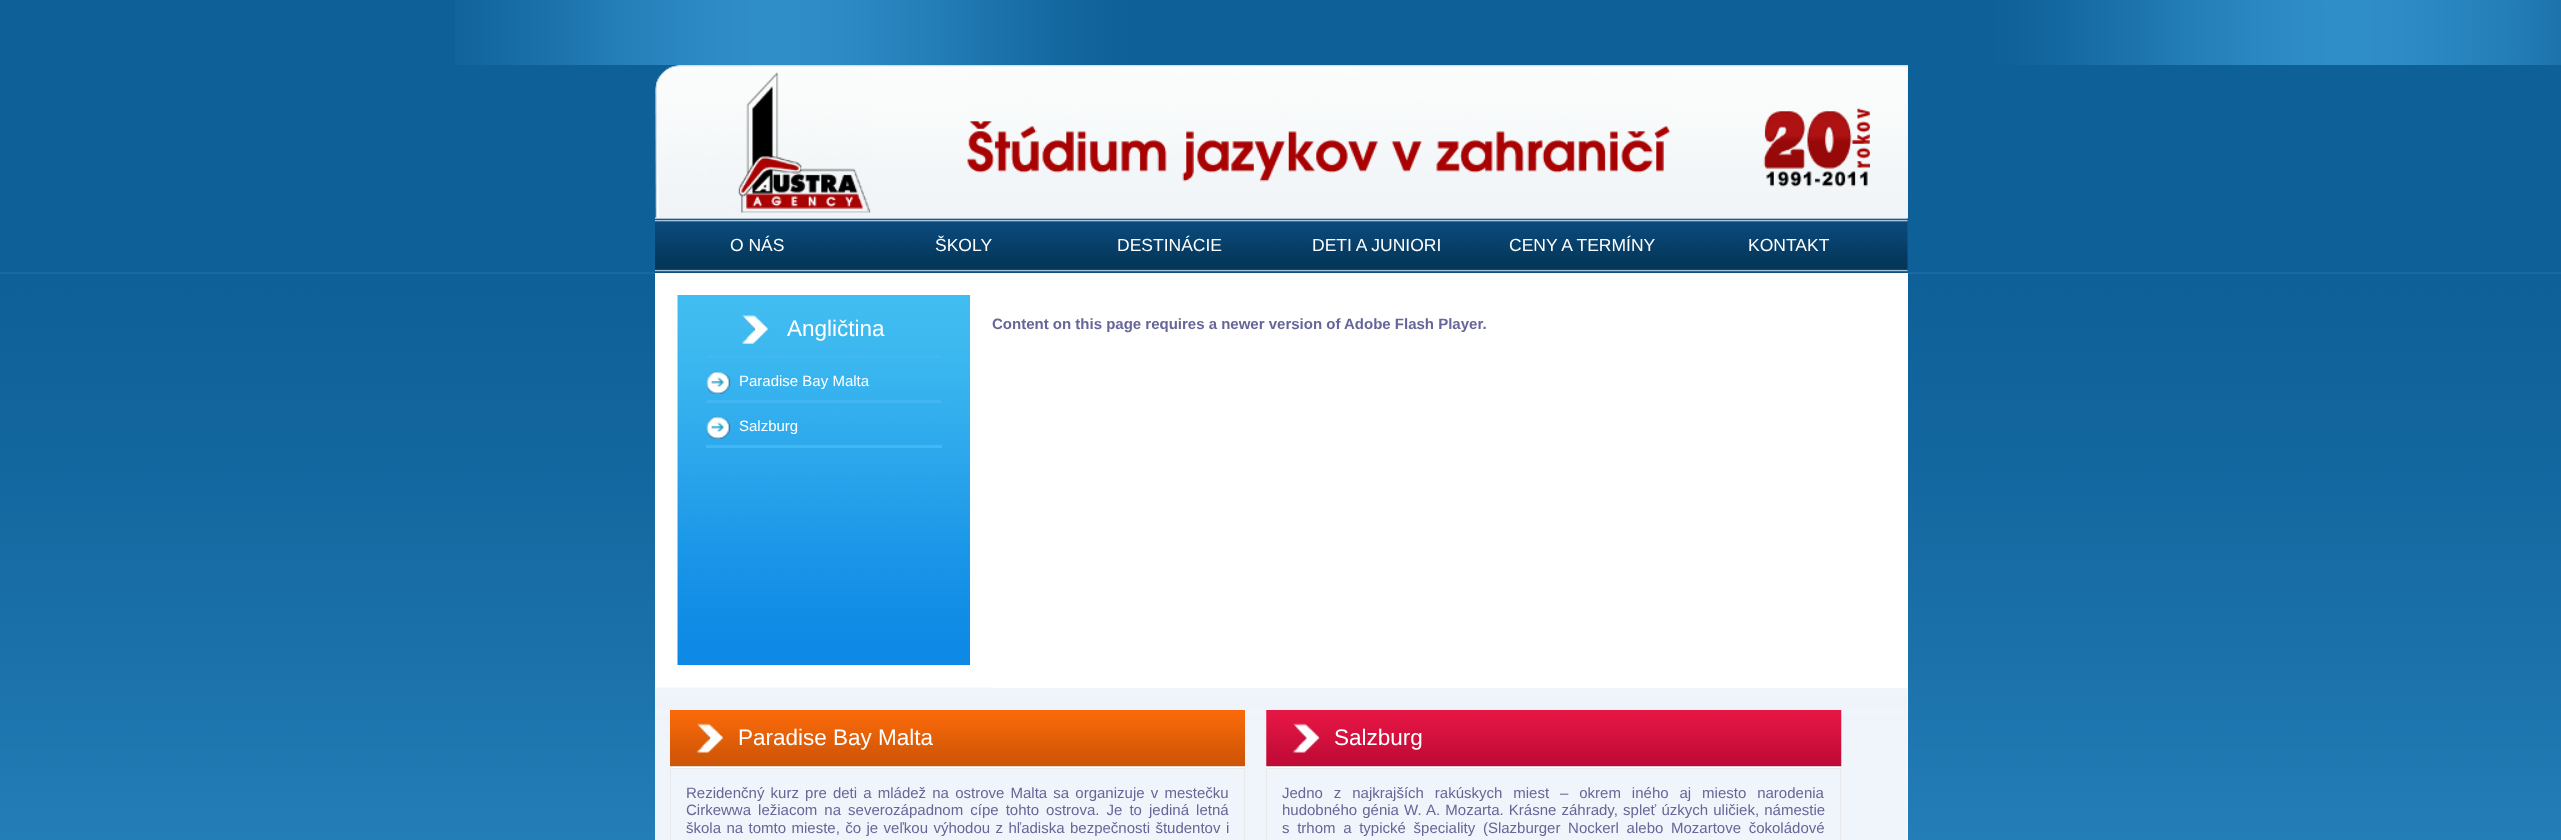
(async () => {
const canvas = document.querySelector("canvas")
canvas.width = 2561
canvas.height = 840
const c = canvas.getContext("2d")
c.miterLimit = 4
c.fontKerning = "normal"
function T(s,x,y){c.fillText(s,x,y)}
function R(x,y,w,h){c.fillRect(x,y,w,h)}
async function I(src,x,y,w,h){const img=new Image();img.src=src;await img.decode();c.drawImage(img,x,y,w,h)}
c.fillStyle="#fff"
R(0,0,2561,840)
await I("1.png",0,0,2561,840)
await I("2.png",455,0,2106,65)
c.fillStyle="#eee"
R(655,65,1253,153)
await I("3.png",655,65,1253,153)
await I("4.png",655,65,216,153)
await I("5.png",967,65,704,117)
await I("6.png",1763,108,107,79)
await I("7.png",655,218,1253,55)
c.font="17.5px Liberation Sans"
c.fillStyle="#fff"
T("O NÁS",730,251)
T("ŠKOLY",935,251)
T("DESTINÁCIE",1117,251)
T("DETI A JUNIORI",1312,251)
T("CENY A TERMÍNY",1509,251)
T("KONTAKT",1748,251)
R(655,273,338,415)
await I("8.png",677,295,293,370)
await I("9.png",741,315,28,29)
c.font="22.5px Liberation Sans"
T("Angličtina",787,336)
c.fillStyle="#42b7f3"
R(706,355,236,3)
await I("10.png",706,371,25,23)
c.font="15px Liberation Sans"
c.fillStyle="#fff"
T("Paradise Bay Malta",739,386)
c.fillStyle="#42b7f3"
R(706,400,235,3)
await I("11.png",706,416,25,23)
c.fillStyle="#fff"
T("Salzburg",739,431)
c.fillStyle="#42b7f3"
R(706,445,236,3)
c.fillStyle="#fff"
R(1907,688,1,152)
await I("12.png",655,687,1253,153)
R(993,273,915,415)
c.font="bold 15px Liberation Sans"
c.fillStyle="#669"
T("Content on this page requires a newer version of Adobe Flash Player.",992,329)
c.fillStyle="#fff"
R(670,766,575,2)
await I("13.png",670,710,575,57)
await I("14.png",696,723,28,30)
c.font="22.5px Liberation Sans"
T("Paradise Bay Malta",738,745)
c.strokeStyle="#eaeaea"
c.strokeRect(670.5,768.5,574,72)
c.wordSpacing="2px"
c.font="15px Liberation Sans"
c.fillStyle="#669"
T("Rezidenčný kurz pre deti a mládež na ostrove Malta sa organizuje v mestečku",686,798)
c.wordSpacing="2.9px"
T("Cirkewwa ležiacom na severozápadnom cípe tohto ostrova. Je to jediná letná",686,815)
c.wordSpacing="1.25px"
T("škola na tomto mieste, čo je veľkou výhodou z hľadiska bezpečnosti študentov i",686,833)
c.fillStyle="#fff"
R(1266,710,575,58)
await I("15.png",1266,710,576,57)
await I("16.png",1292,723,28,30)
c.wordSpacing="0px"
c.font="22.5px Liberation Sans"
T("Salzburg",1334,745)
c.strokeRect(1266.5,768.5,574,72)
c.wordSpacing="6.75px"
c.font="15px Liberation Sans"
c.fillStyle="#669"
T("Jedno z najkrajších rakúskych miest – okrem iného aj miesto narodenia",1282,798)
c.wordSpacing="1px"
T("hudobného génia W. A. Mozarta. Krásne záhrady, spleť úzkych uličiek, námestie",1282,815)
c.wordSpacing="3.5px"
T("s trhom a typické špeciality (Slazburger Nockerl alebo Mozartove čokoládové",1282,833)
})()
